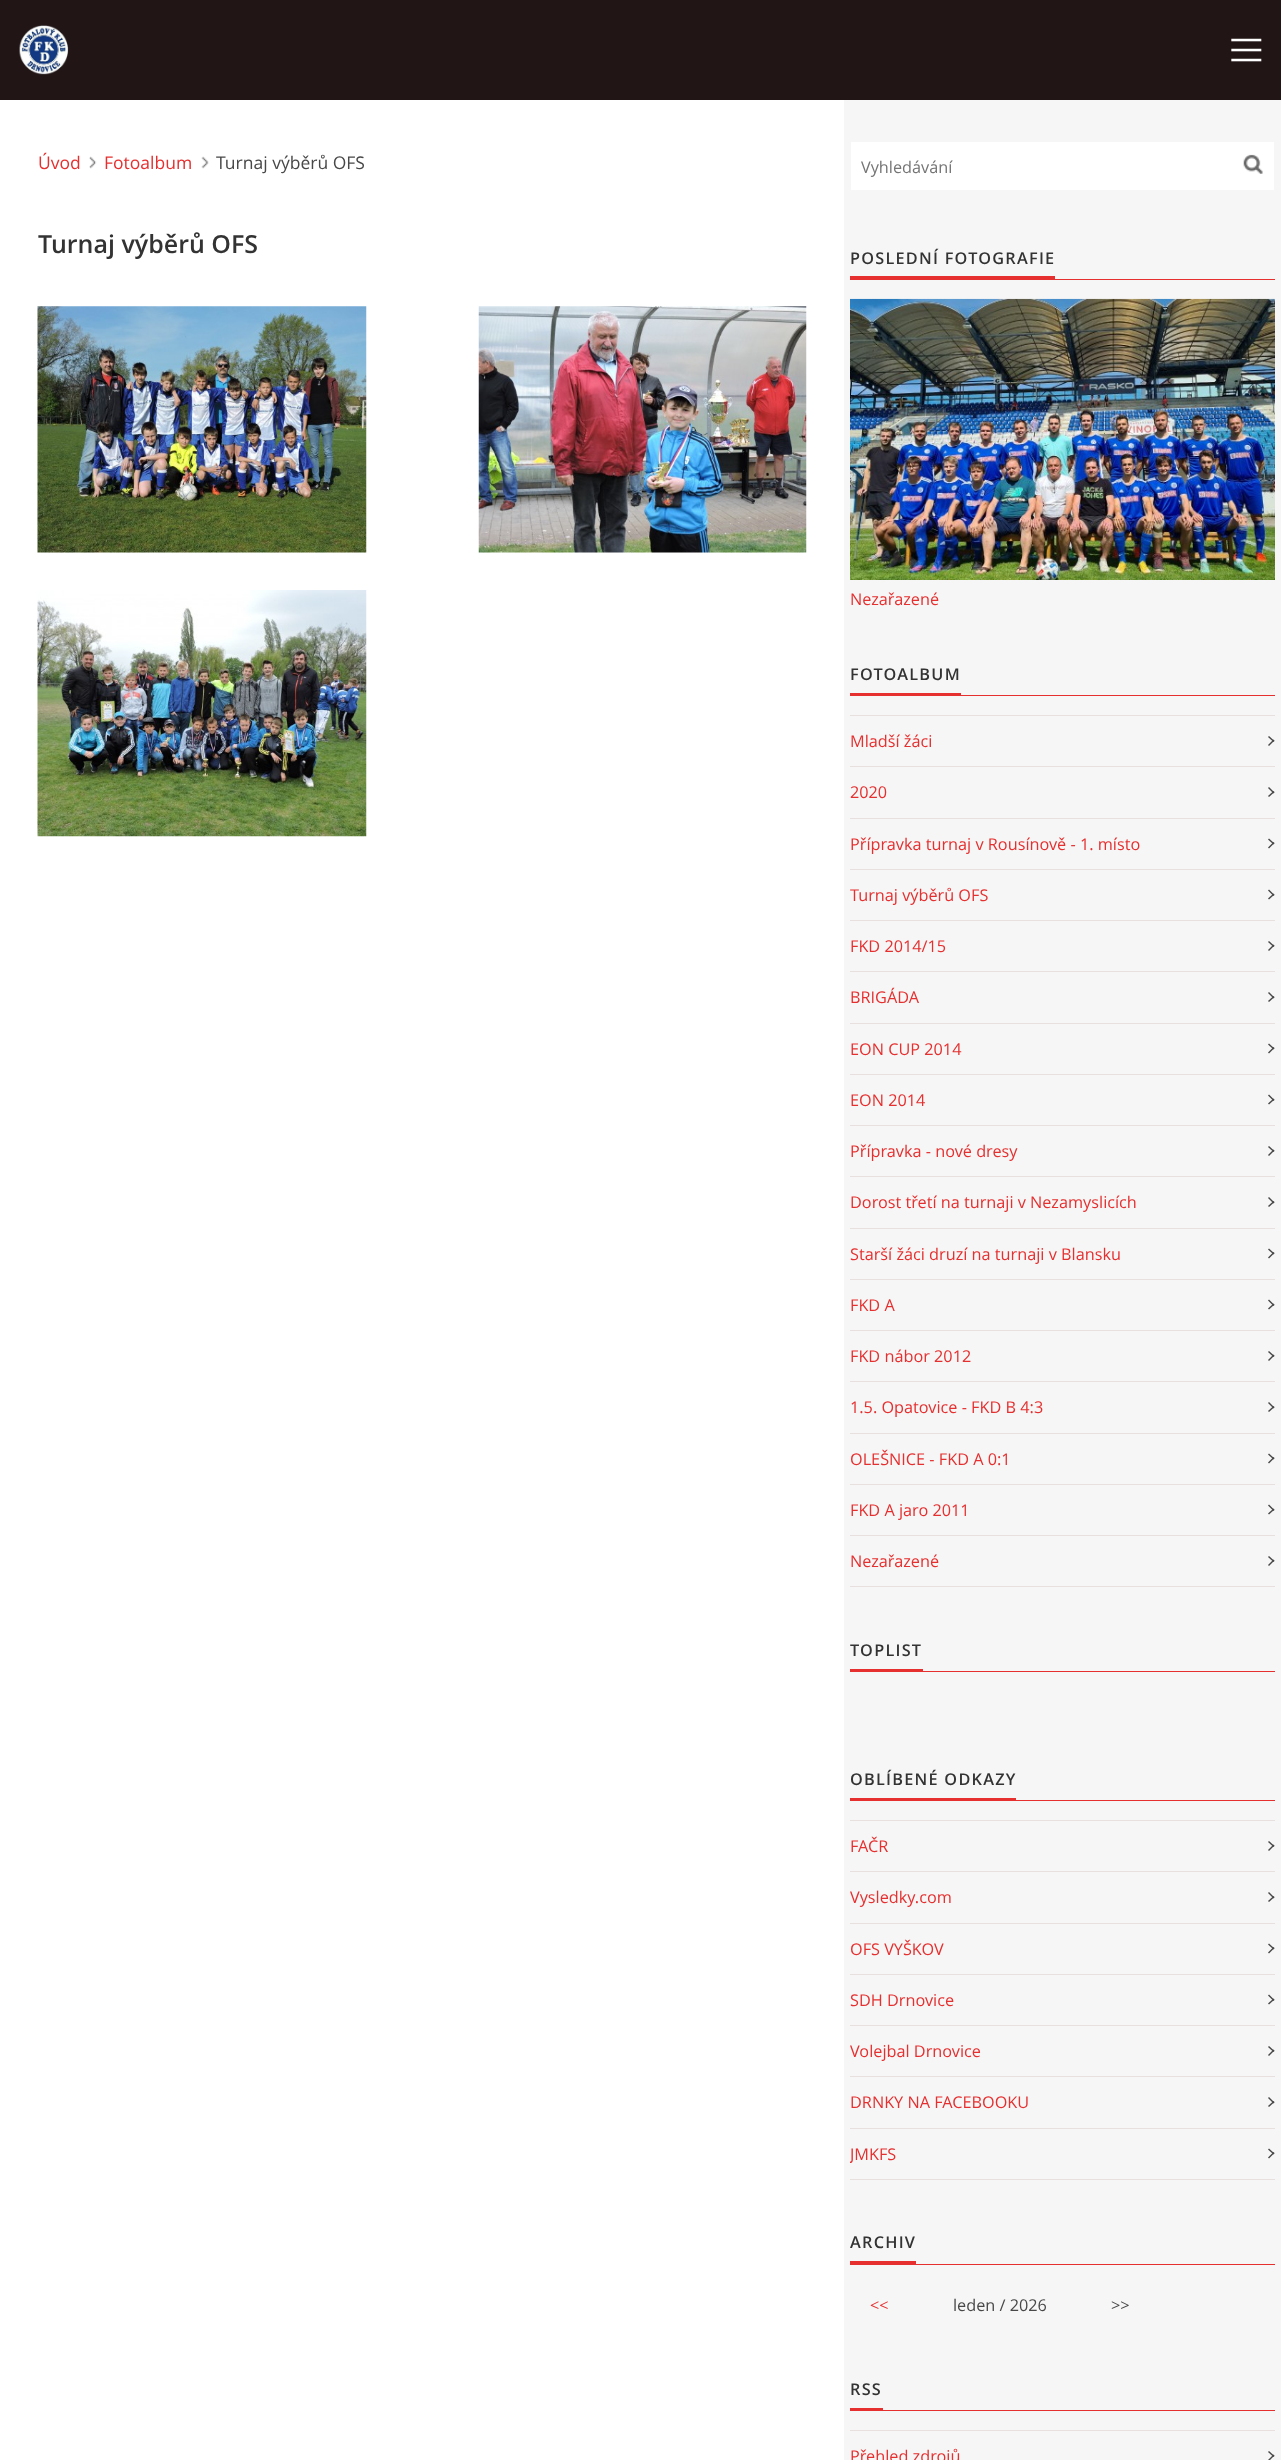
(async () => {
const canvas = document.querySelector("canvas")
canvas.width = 1281
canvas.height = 2460
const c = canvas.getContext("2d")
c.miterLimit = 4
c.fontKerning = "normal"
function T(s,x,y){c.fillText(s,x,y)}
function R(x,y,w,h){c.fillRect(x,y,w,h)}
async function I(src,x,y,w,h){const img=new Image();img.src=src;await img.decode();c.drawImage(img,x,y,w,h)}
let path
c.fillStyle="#fff"
R(0,0,1281,2460)
c.fillStyle="#211515"
R(0,0,1281,100)
await I("1.png",19,25,50,50)
await I("2.png",1231,38,31,24)
await I("3.png",89,156,8,13)
c.font="17.5px Open Sans"
c.fillStyle="#e62f2f"
T("Úvod",38,169)
await I("4.png",201,156,8,13)
T("Fotoalbum",104,169)
c.fillStyle="#484848"
T("Turnaj výběrů OFS",216,169)
c.font="600 25px Open Sans"
c.fillStyle="#333"
T("Turnaj výběrů OFS",38,253)
await I("5.png",37,306,330,247)
await I("6.png",478,306,329,247)
await I("7.png",37,590,330,247)
c.fillStyle="#f6f6f6"
R(844,100,437,2360)
c.fillStyle="#fff"
R(851,142,423,48)
c.font="16.25px Open Sans"
c.fillStyle="#757575"
T("Vyhledávání",861,173)
await I("8.png",1243,154,20,20)
c.letterSpacing="1.25px"
c.font="600 16.25px Open Sans"
c.fillStyle="#333"
T("POSLEDNÍ FOTOGRAFIE",850,264)
c.fillStyle="#e62f2f"
R(850,276,205,3)
R(850,279,425,1)
await I("9.png",850,298,425,282)
c.letterSpacing="0px"
c.font="16.25px Open Sans"
T("Nezařazené",850,605)
c.letterSpacing="1.25px"
c.font="600 16.25px Open Sans"
c.fillStyle="#333"
T("FOTOALBUM",850,680)
c.fillStyle="#e62f2f"
R(850,693,111,2)
R(850,695,425,1)
c.fillStyle="#e8dfdf"
R(850,715,425,1)
R(850,766,425,1)
c.letterSpacing="0px"
c.font="16.25px Open Sans"
c.fillStyle="#e62f2f"
T("Mladší žáci",850,747)
c.fillStyle="#484848"
path = new Path2D("M1269 736l5.5 5l-1 1l-5.5-5z")
c.fill(path)
path = new Path2D("M1268 745l5.5-5.5l1 1l-5.5 5.5z")
c.fill(path)
c.fillStyle="#e8dfdf"
R(850,818,425,1)
c.fillStyle="#e62f2f"
T("2020",850,798)
c.fillStyle="#484848"
path = new Path2D("M1269 787l5.5 5.5l-1 1l-5.5-5.5z")
c.fill(path)
path = new Path2D("M1268 796l5.5-5l1 1l-5.5 5z")
c.fill(path)
c.fillStyle="#e8dfdf"
R(850,869,425,1)
c.fillStyle="#e62f2f"
T("Přípravka turnaj v Rousínově - 1. místo",850,850)
c.fillStyle="#484848"
path = new Path2D("M1269 838.5l5.5 5l-1 1l-5.5-5z")
c.fill(path)
path = new Path2D("M1268 847.5l5.5-5.5l1 1l-5.5 5.5z")
c.fill(path)
c.fillStyle="#e8dfdf"
R(850,920,425,1)
c.fillStyle="#e62f2f"
T("Turnaj výběrů OFS",850,901)
c.fillStyle="#484848"
path = new Path2D("M1269 889.5l5.5 5.5l-1 1l-5.5-5.5z")
c.fill(path)
path = new Path2D("M1268 898.5l5.5-5l1 1l-5.5 5z")
c.fill(path)
c.fillStyle="#e8dfdf"
R(850,971,425,1)
c.fillStyle="#e62f2f"
T("FKD 2014/15",850,952)
c.fillStyle="#484848"
path = new Path2D("M1269 941l5.5 5l-1 1l-5.5-5z")
c.fill(path)
path = new Path2D("M1268 950l5.5-5.5l1 1l-5.5 5.5z")
c.fill(path)
c.fillStyle="#e8dfdf"
R(850,1023,425,1)
c.fillStyle="#e62f2f"
T("BRIGÁDA",850,1003)
c.fillStyle="#484848"
path = new Path2D("M1269 992l5.5 5.5l-1 1l-5.5-5.5z")
c.fill(path)
path = new Path2D("M1268 1001l5.5-5l1 1l-5.5 5z")
c.fill(path)
c.fillStyle="#e8dfdf"
R(850,1074,425,1)
c.fillStyle="#e62f2f"
T("EON CUP 2014",850,1055)
c.fillStyle="#484848"
path = new Path2D("M1269 1043.5l5.5 5l-1 1l-5.5-5z")
c.fill(path)
path = new Path2D("M1268 1052.5l5.5-5.5l1 1l-5.5 5.5z")
c.fill(path)
c.fillStyle="#e8dfdf"
R(850,1125,425,1)
c.fillStyle="#e62f2f"
T("EON 2014",850,1106)
c.fillStyle="#484848"
path = new Path2D("M1269 1094.5l5.5 5.5l-1 1l-5.5-5.5z")
c.fill(path)
path = new Path2D("M1268 1103.5l5.5-5l1 1l-5.5 5z")
c.fill(path)
c.fillStyle="#e8dfdf"
R(850,1176,425,1)
c.fillStyle="#e62f2f"
T("Přípravka - nové dresy",850,1157)
c.fillStyle="#484848"
path = new Path2D("M1269 1146l5.5 5l-1 1l-5.5-5z")
c.fill(path)
path = new Path2D("M1268 1155l5.5-5.5l1 1l-5.5 5.5z")
c.fill(path)
c.fillStyle="#e8dfdf"
R(850,1228,425,1)
c.fillStyle="#e62f2f"
T("Dorost třetí na turnaji v Nezamyslicích",850,1208)
c.fillStyle="#484848"
path = new Path2D("M1269 1197l5.5 5.5l-1 1l-5.5-5.5z")
c.fill(path)
path = new Path2D("M1268 1206l5.5-5l1 1l-5.5 5z")
c.fill(path)
c.fillStyle="#e8dfdf"
R(850,1279,425,1)
c.fillStyle="#e62f2f"
T("Starší žáci druzí na turnaji v Blansku",850,1260)
c.fillStyle="#484848"
path = new Path2D("M1269 1248.5l5.5 5l-1 1l-5.5-5z")
c.fill(path)
path = new Path2D("M1268 1257.5l5.5-5.5l1 1l-5.5 5.5z")
c.fill(path)
c.fillStyle="#e8dfdf"
R(850,1330,425,1)
c.fillStyle="#e62f2f"
T("FKD A",850,1311)
c.fillStyle="#484848"
path = new Path2D("M1269 1299.5l5.5 5.5l-1 1l-5.5-5.5z")
c.fill(path)
path = new Path2D("M1268 1308.5l5.5-5l1 1l-5.5 5z")
c.fill(path)
c.fillStyle="#e8dfdf"
R(850,1381,425,1)
c.fillStyle="#e62f2f"
T("FKD nábor 2012",850,1362)
c.fillStyle="#484848"
path = new Path2D("M1269 1351l5.5 5l-1 1l-5.5-5z")
c.fill(path)
path = new Path2D("M1268 1360l5.5-5.5l1 1l-5.5 5.5z")
c.fill(path)
c.fillStyle="#e8dfdf"
R(850,1433,425,1)
c.fillStyle="#e62f2f"
T("1.5. Opatovice - FKD B 4:3",850,1413)
c.fillStyle="#484848"
path = new Path2D("M1269 1402l5.5 5.5l-1 1l-5.5-5.5z")
c.fill(path)
path = new Path2D("M1268 1411l5.5-5l1 1l-5.5 5z")
c.fill(path)
c.fillStyle="#e8dfdf"
R(850,1484,425,1)
c.fillStyle="#e62f2f"
T("OLEŠNICE - FKD A 0:1",850,1465)
c.fillStyle="#484848"
path = new Path2D("M1269 1453.5l5.5 5l-1 1l-5.5-5z")
c.fill(path)
path = new Path2D("M1268 1462.5l5.5-5.5l1 1l-5.5 5.5z")
c.fill(path)
c.fillStyle="#e8dfdf"
R(850,1535,425,1)
c.fillStyle="#e62f2f"
T("FKD A jaro 2011",850,1516)
c.fillStyle="#484848"
path = new Path2D("M1269 1504.5l5.5 5.5l-1 1l-5.5-5.5z")
c.fill(path)
path = new Path2D("M1268 1513.5l5.5-5l1 1l-5.5 5z")
c.fill(path)
c.fillStyle="#e8dfdf"
R(850,1586,425,1)
c.fillStyle="#e62f2f"
T("Nezařazené",850,1567)
c.fillStyle="#484848"
path = new Path2D("M1269 1556l5.5 5l-1 1l-5.5-5z")
c.fill(path)
path = new Path2D("M1268 1565l5.5-5.5l1 1l-5.5 5.5z")
c.fill(path)
c.letterSpacing="1.25px"
c.font="600 16.25px Open Sans"
c.fillStyle="#333"
T("TOPLIST",850,1656)
c.fillStyle="#e62f2f"
R(850,1669,73,2)
R(850,1671,425,1)
c.fillStyle="#333"
T("OBLÍBENÉ ODKAZY",850,1785)
c.fillStyle="#e62f2f"
R(850,1798,166,2)
R(850,1800,425,1)
c.fillStyle="#e8dfdf"
R(850,1820,425,1)
R(850,1871,425,1)
c.letterSpacing="0px"
c.font="16.25px Open Sans"
c.fillStyle="#e62f2f"
T("FAČR",850,1852)
c.fillStyle="#484848"
path = new Path2D("M1269 1841l5.5 5l-1 1l-5.5-5z")
c.fill(path)
path = new Path2D("M1268 1850l5.5-5.5l1 1l-5.5 5.5z")
c.fill(path)
c.fillStyle="#e8dfdf"
R(850,1923,425,1)
c.fillStyle="#e62f2f"
T("Vysledky.com",850,1903)
c.fillStyle="#484848"
path = new Path2D("M1269 1892l5.5 5.5l-1 1l-5.5-5.5z")
c.fill(path)
path = new Path2D("M1268 1901l5.5-5l1 1l-5.5 5z")
c.fill(path)
c.fillStyle="#e8dfdf"
R(850,1974,425,1)
c.fillStyle="#e62f2f"
T("OFS VYŠKOV",850,1955)
c.fillStyle="#484848"
path = new Path2D("M1269 1943.5l5.5 5l-1 1l-5.5-5z")
c.fill(path)
path = new Path2D("M1268 1952.5l5.5-5.5l1 1l-5.5 5.5z")
c.fill(path)
c.fillStyle="#e8dfdf"
R(850,2025,425,1)
c.fillStyle="#e62f2f"
T("SDH Drnovice",850,2006)
c.fillStyle="#484848"
path = new Path2D("M1269 1994.5l5.5 5.5l-1 1l-5.5-5.5z")
c.fill(path)
path = new Path2D("M1268 2003.5l5.5-5l1 1l-5.5 5z")
c.fill(path)
c.fillStyle="#e8dfdf"
R(850,2076,425,1)
c.fillStyle="#e62f2f"
T("Volejbal Drnovice",850,2057)
c.fillStyle="#484848"
path = new Path2D("M1269 2046l5.5 5l-1 1l-5.5-5z")
c.fill(path)
path = new Path2D("M1268 2055l5.5-5.5l1 1l-5.5 5.5z")
c.fill(path)
c.fillStyle="#e8dfdf"
R(850,2128,425,1)
c.fillStyle="#e62f2f"
T("DRNKY NA FACEBOOKU",850,2108)
c.fillStyle="#484848"
path = new Path2D("M1269 2097l5.5 5.5l-1 1l-5.5-5.5z")
c.fill(path)
path = new Path2D("M1268 2106l5.5-5l1 1l-5.5 5z")
c.fill(path)
c.fillStyle="#e8dfdf"
R(850,2179,425,1)
c.save()
c.beginPath()
c.rect(850,100,425,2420)
c.clip()
c.fillStyle="#e62f2f"
T("JMKFS",850,2160)
c.restore()
c.fillStyle="#484848"
path = new Path2D("M1269 2148.5l5.5 5l-1 1l-5.5-5z")
c.fill(path)
path = new Path2D("M1268 2157.5l5.5-5.5l1 1l-5.5 5.5z")
c.fill(path)
c.letterSpacing="1.25px"
c.font="600 16.25px Open Sans"
c.fillStyle="#333"
T("ARCHIV",850,2248)
c.fillStyle="#e62f2f"
R(850,2261,66,3)
R(850,2264,425,1)
c.letterSpacing="0px"
c.font="16.25px Open Sans"
T("<<",870,2311)
c.fillStyle="#484848"
T("leden / 2026",953,2311)
T(">>",1111,2311)
c.letterSpacing="1.25px"
c.font="600 16.25px Open Sans"
c.fillStyle="#333"
T("RSS",850,2395)
c.fillStyle="#e62f2f"
R(850,2408,33,2)
R(850,2410,425,1)
c.fillStyle="#e8dfdf"
R(850,2430,425,1)
c.letterSpacing="0px"
c.font="16.25px Open Sans"
c.fillStyle="#e62f2f"
T("Přehled zdrojů",850,2462)
c.fillStyle="#484848"
path = new Path2D("M1269 2451l5.5 5l-1 1l-5.5-5z")
c.fill(path)
path = new Path2D("M1268 2460l5.5-5.5l1 1l-5.5 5.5z")
c.fill(path)
})()
